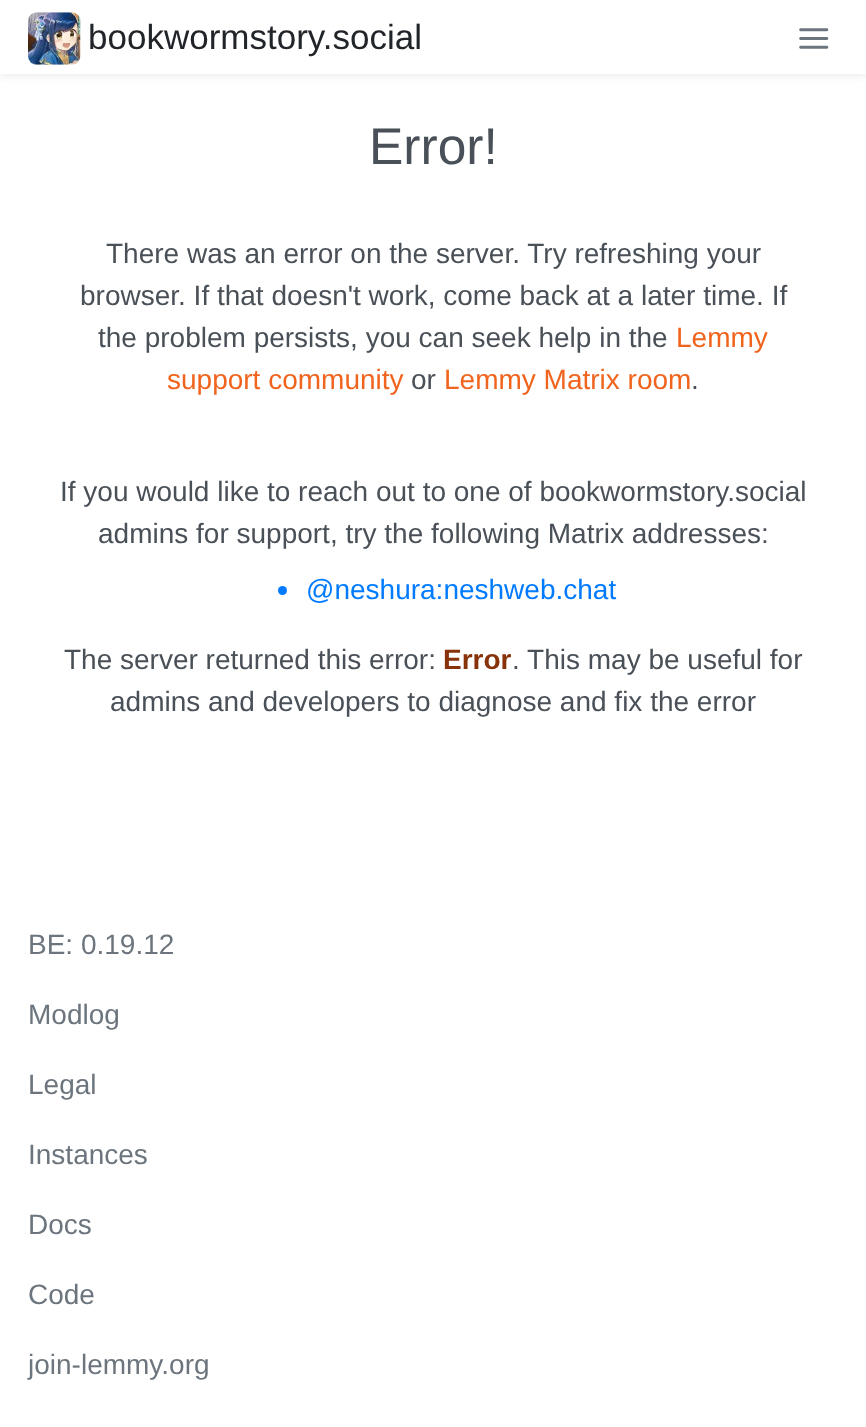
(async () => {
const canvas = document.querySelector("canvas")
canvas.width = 866
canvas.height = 1427
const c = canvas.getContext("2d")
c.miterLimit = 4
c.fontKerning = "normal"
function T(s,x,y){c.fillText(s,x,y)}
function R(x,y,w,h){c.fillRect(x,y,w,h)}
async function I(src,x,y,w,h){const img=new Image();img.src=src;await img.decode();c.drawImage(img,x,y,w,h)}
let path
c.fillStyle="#fff"
R(0,0,866,1427)
c.save()
path = new Path2D("M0 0h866v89h-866zm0 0h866v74h-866z")
c.clip(path,"evenodd")
c.fillStyle="#22222212"
c.filter="blur(3.5px)"
c.beginPath()
c.rect(0,4,866,73)
c.fill()
c.filter="none"
c.restore()
await I("1.png",28,12,53,53)
c.font="35px Liberation Sans"
c.fillStyle="#212529"
T("bookwormstory.social",88,49)
await I("2.png",799,28,30,21)
c.font="51.5px Liberation Sans"
c.fillStyle="#495057"
T("Error!",369,164)
c.font="28px Liberation Sans"
T("There was an error on the server. Try refreshing your",106,263)
T("browser. If that doesn't work, come back at a later time. If",80,305)
T("the problem persists, you can seek help in the",98,347)
c.fillStyle="#f1641e"
T("Lemmy",676,347)
T("support community",167,389)
c.fillStyle="#495057"
T("or",411,389)
c.fillStyle="#f1641e"
T("Lemmy Matrix room",444,389)
c.fillStyle="#495057"
T(".",691,389)
T("If you would like to reach out to one of bookwormstory.social",60,501)
T("admins for support, try the following Matrix addresses:",98,543)
c.fillStyle="#007bff"
c.beginPath()
c.arc(282.5,590.5,4.5,0,7)
c.fill()
T("@neshura:neshweb.chat",306,599)
c.fillStyle="#495057"
T("The server returned this error:",64,669)
c.font="bold 28px Liberation Sans"
c.fillStyle="#873208"
T("Error",443,669)
c.font="28px Liberation Sans"
c.fillStyle="#495057"
T(". This may be useful for",512,669)
T("admins and developers to diagnose and fix the error",110,711)
c.fillStyle="#6c757d"
T("BE: 0.19.12",28,954)
T("Modlog",28,1024)
T("Legal",28,1094)
T("Instances",28,1164)
T("Docs",28,1234)
T("Code",28,1304)
T("join-lemmy.org",28,1374)
})()
